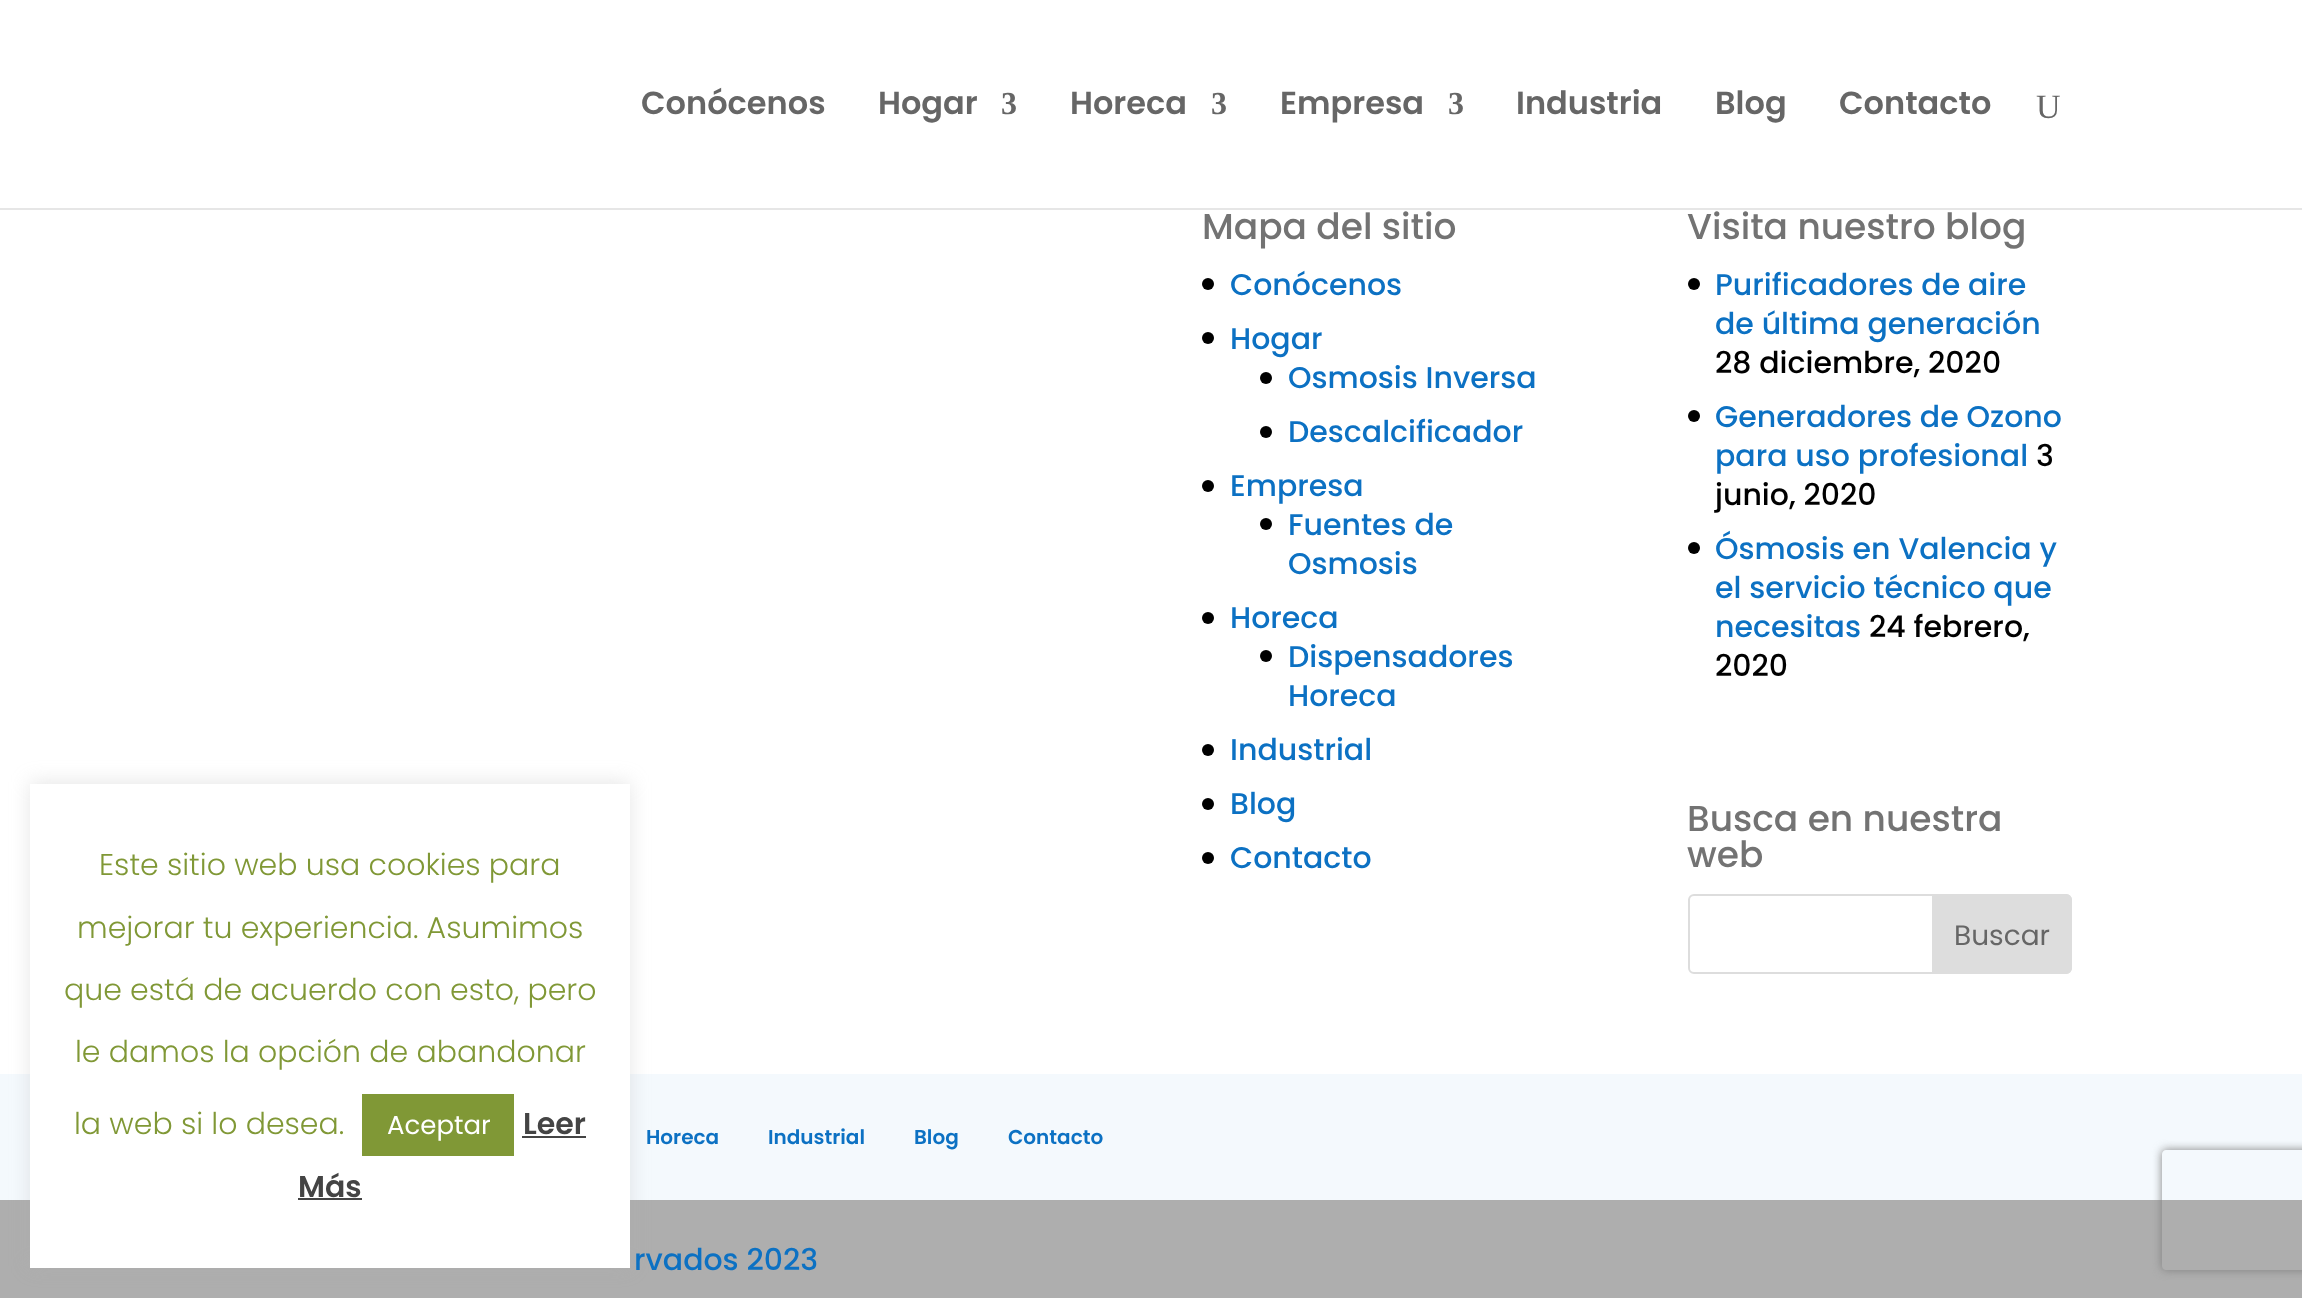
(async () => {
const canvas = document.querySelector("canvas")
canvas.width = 2302
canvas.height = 1298
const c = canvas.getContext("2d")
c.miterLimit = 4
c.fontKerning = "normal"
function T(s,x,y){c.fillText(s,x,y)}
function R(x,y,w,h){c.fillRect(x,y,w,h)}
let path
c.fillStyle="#fff"
R(0,0,2302,1298)
c.fillStyle="#f4f9fd"
R(0,1074,2302,126)
c.fillStyle="#aeaeae"
R(0,1200,2302,98)
c.fillStyle="#acabab4d"
c.filter="blur(10px)"
c.beginPath()
c.rect(30,782,600,484)
c.fill()
c.filter="none"
c.fillStyle="#fff"
R(30,784,600,484)
c.font="300 30px Poppins"
c.fillStyle="#809836"
T("Este sitio web usa cookies para",99,875)
T("mejorar tu experiencia. Asumimos",77,938)
T("que está de acuerdo con esto, pero",64,1000)
T("le damos la opción de abandonar",75,1062)
T("la web si lo desea.",74,1134)
R(362,1094,152,62)
c.font="26px Poppins"
c.fillStyle="#fff"
T("Aceptar",387,1134)
c.font="600 30px Poppins"
c.fillStyle="#444"
T("Leer",523,1134)
R(522,1136,64,2)
T("Más",298,1197)
R(298,1198,64,2)
c.fillStyle="#e6e6e6"
R(0,208,2302,2)
c.font="600 32px Poppins"
c.fillStyle="#666"
T("Conócenos",641,114)
T("Hogar",878,114)
c.font="bold 32px Liberation Serif"
T("3",1001,114)
c.font="600 32px Poppins"
T("Horeca",1070,114)
c.font="bold 32px Liberation Serif"
T("3",1211,114)
c.font="600 32px Poppins"
T("Empresa",1280,114)
c.font="bold 32px Liberation Serif"
T("3",1448,114)
c.font="600 32px Poppins"
T("Industria",1516,114)
T("Blog",1715,114)
T("Contacto",1839,114)
c.font="34px Liberation Serif"
T("U",2036,118)
c.font="500 36px Poppins"
c.fillStyle="#737373"
T("Mapa del sitio",1202,239)
c.fillStyle="#000"
c.beginPath()
c.arc(1208,284,6,0,7)
c.fill()
c.font="500 30px Poppins"
c.fillStyle="#0c71c3"
T("Conócenos",1230,295)
c.fillStyle="#000"
c.beginPath()
c.arc(1208,338,6,0,7)
c.fill()
c.fillStyle="#0c71c3"
T("Hogar",1230,349)
c.fillStyle="#000"
c.beginPath()
c.arc(1266,378,6,0,7)
c.fill()
c.fillStyle="#0c71c3"
T("Osmosis Inversa",1288,388)
c.fillStyle="#000"
c.beginPath()
c.arc(1266,432,6,0,7)
c.fill()
c.fillStyle="#0c71c3"
T("Descalcificador",1288,442)
c.fillStyle="#000"
c.beginPath()
c.arc(1208,486,6,0,7)
c.fill()
c.fillStyle="#0c71c3"
T("Empresa",1230,496)
c.fillStyle="#000"
c.beginPath()
c.arc(1266,524,6,0,7)
c.fill()
c.fillStyle="#0c71c3"
T("Fuentes de",1288,535)
T("Osmosis",1288,574)
c.fillStyle="#000"
c.beginPath()
c.arc(1208,618,6,0,7)
c.fill()
c.fillStyle="#0c71c3"
T("Horeca",1230,628)
c.fillStyle="#000"
c.beginPath()
c.arc(1266,656,6,0,7)
c.fill()
c.fillStyle="#0c71c3"
T("Dispensadores",1288,667)
T("Horeca",1288,706)
c.fillStyle="#000"
c.beginPath()
c.arc(1208,750,6,0,7)
c.fill()
c.fillStyle="#0c71c3"
T("Industrial",1230,760)
c.fillStyle="#000"
c.beginPath()
c.arc(1208,804,6,0,7)
c.fill()
c.fillStyle="#0c71c3"
T("Blog",1230,814)
c.fillStyle="#000"
c.beginPath()
c.arc(1208,858,6,0,7)
c.fill()
c.fillStyle="#0c71c3"
T("Contacto",1230,868)
c.font="500 36px Poppins"
c.fillStyle="#737373"
T("Visita nuestro blog",1687,239)
c.fillStyle="#000"
c.beginPath()
c.arc(1694,284,6,0,7)
c.fill()
c.font="500 30px Poppins"
c.fillStyle="#0c71c3"
T("Purificadores de aire",1715,295)
T("de última generación",1715,334)
c.fillStyle="#000"
T("28 diciembre, 2020",1715,373)
c.beginPath()
c.arc(1694,416,6,0,7)
c.fill()
c.fillStyle="#0c71c3"
T("Generadores de Ozono",1715,427)
T("para uso profesional",1715,466)
c.fillStyle="#000"
T("3",2036,466)
T("junio, 2020",1715,505)
c.beginPath()
c.arc(1694,548,6,0,7)
c.fill()
c.fillStyle="#0c71c3"
T("Ósmosis en Valencia y",1715,559)
T("el servicio técnico que",1715,598)
T("necesitas",1715,637)
c.fillStyle="#000"
T("24 febrero,",1869,637)
T("2020",1715,676)
c.font="500 36px Poppins"
c.fillStyle="#737373"
T("Busca en nuestra",1687,831)
T("web",1687,867)
c.beginPath()
c.roundRect(1689,895,382,78,5)
c.strokeStyle="#ddd"
c.lineWidth=2
c.stroke()
c.fillStyle="#ddd"
c.beginPath()
c.roundRect(1933,895,138,78,[0,5,5,0])
c.fill()
c.stroke()
c.font="28px Poppins"
c.fillStyle="#666"
T("Buscar",1954,945)
c.font="600 20px Poppins"
c.fillStyle="#0c71c3"
T("Horeca",646,1144)
T("Industrial",768,1144)
T("Blog",914,1144)
T("Contacto",1008,1144)
c.font="500 30px Poppins"
T("rvados 2023",634,1270)
c.save()
path = new Path2D("M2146 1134h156v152h-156zm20 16h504c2 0 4 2 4 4v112c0 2-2 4-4 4h-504c-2 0-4-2-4-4v-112c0-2 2-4 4-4z")
c.clip(path,"evenodd")
c.fillStyle="#808080"
c.filter="blur(5px)"
c.beginPath()
c.roundRect(2162,1150,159,120,4)
c.fill()
c.filter="none"
c.restore()
})()
